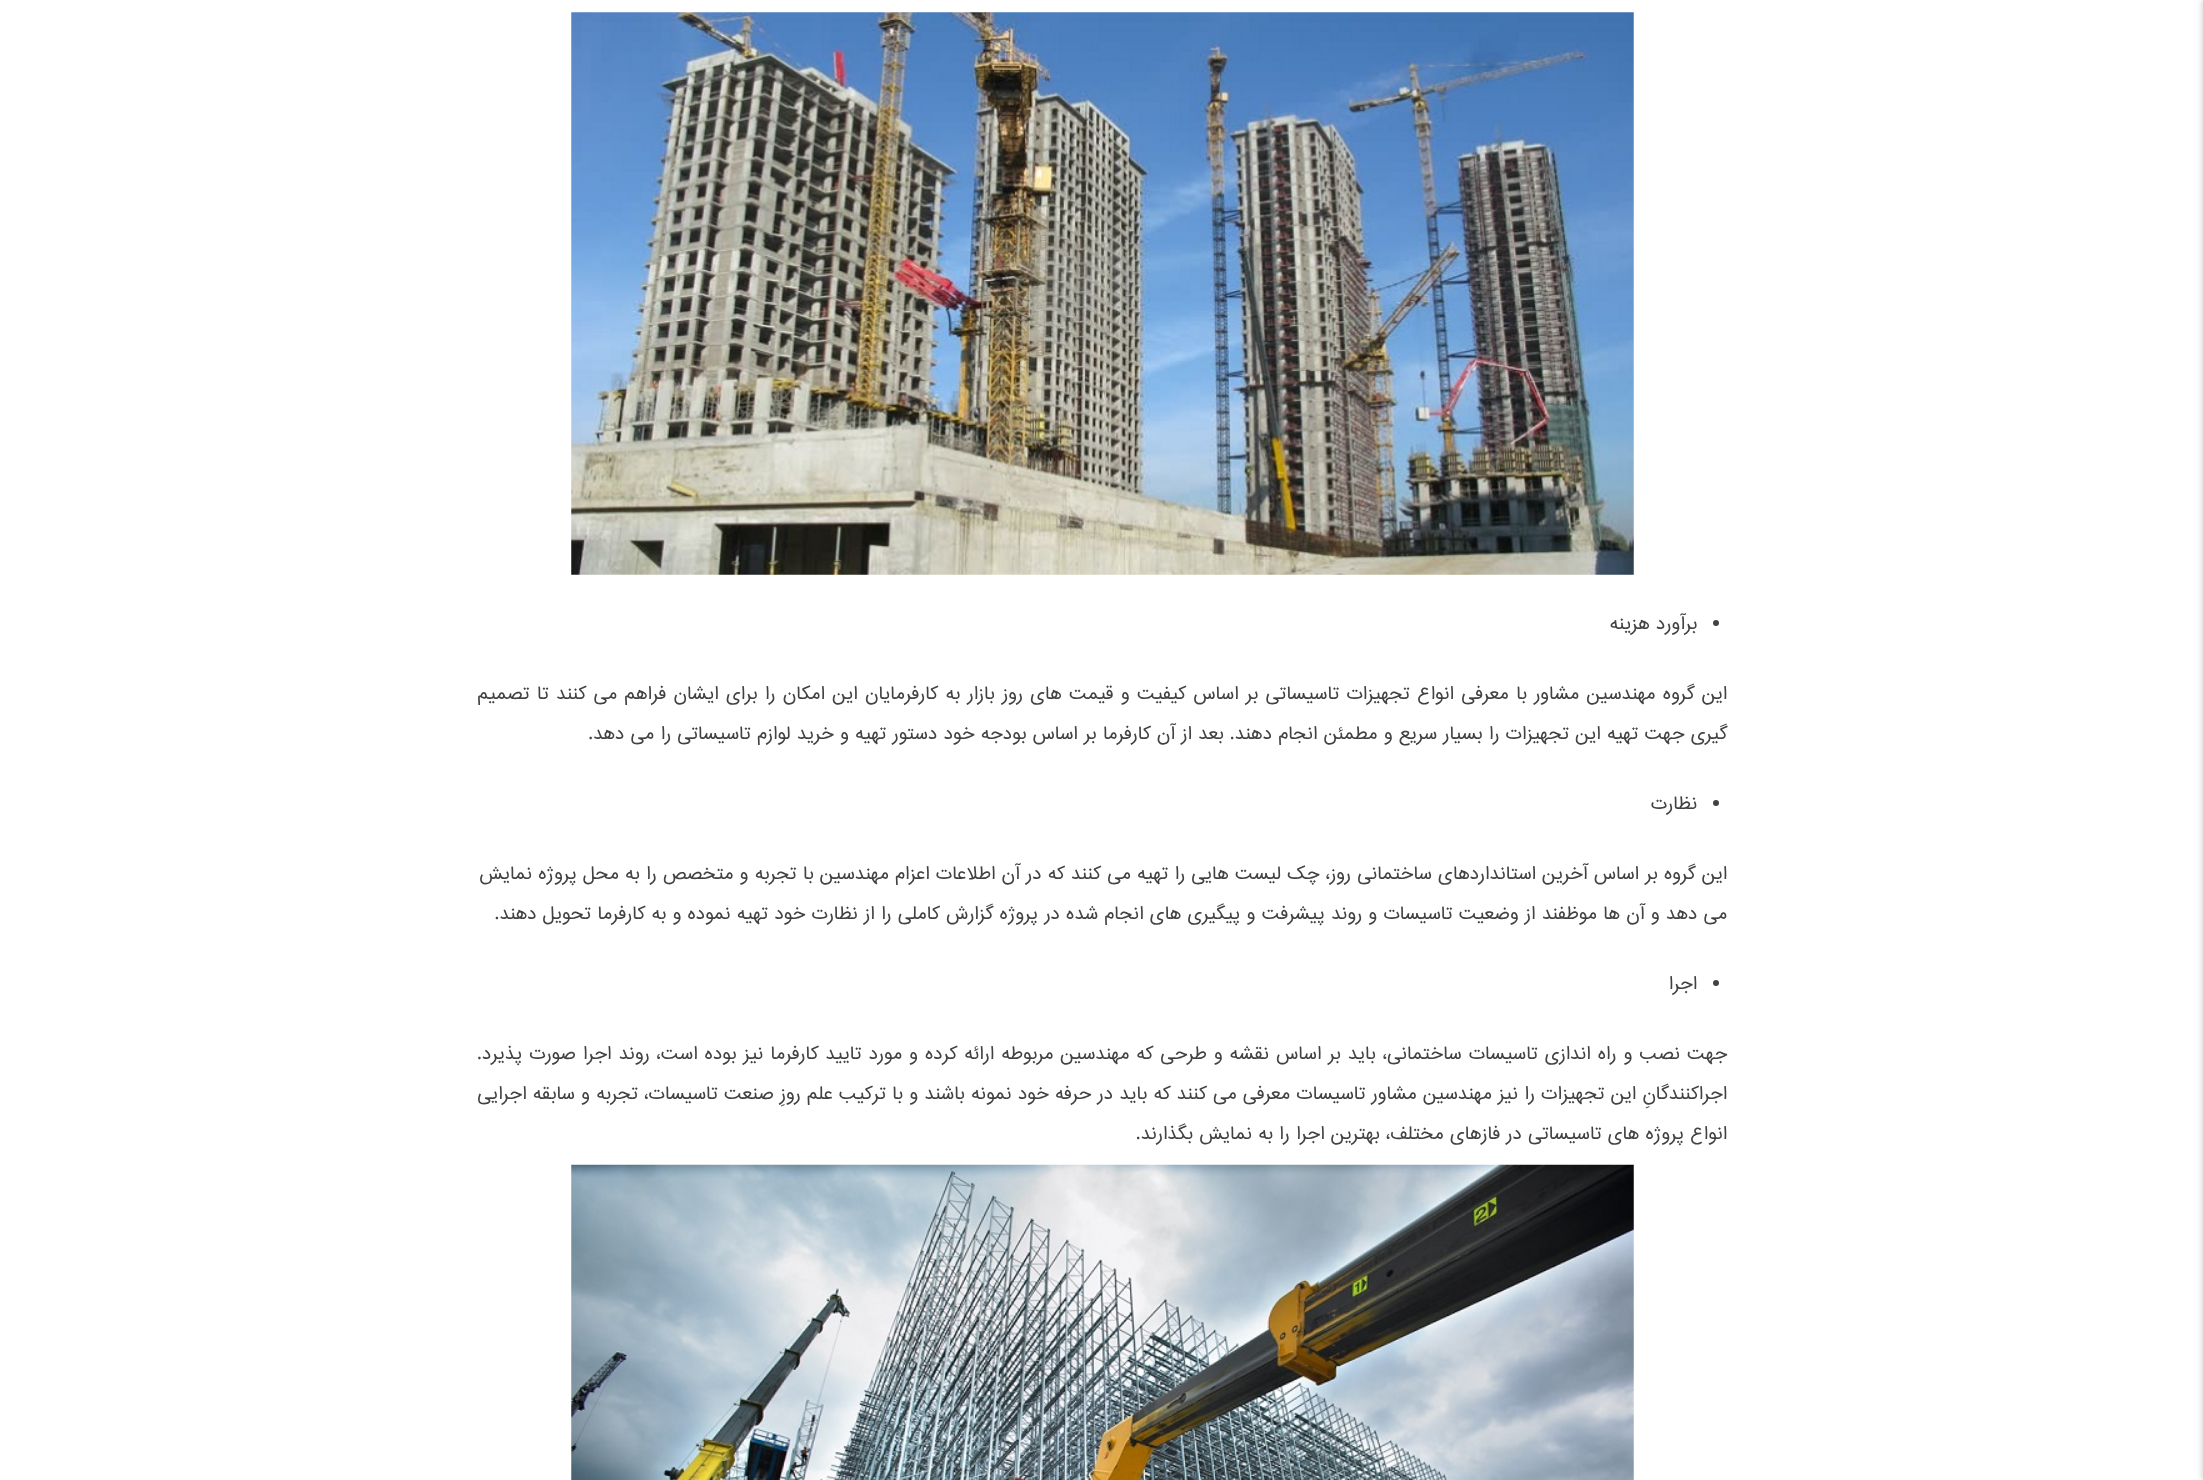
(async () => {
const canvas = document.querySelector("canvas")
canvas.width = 2203
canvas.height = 1480
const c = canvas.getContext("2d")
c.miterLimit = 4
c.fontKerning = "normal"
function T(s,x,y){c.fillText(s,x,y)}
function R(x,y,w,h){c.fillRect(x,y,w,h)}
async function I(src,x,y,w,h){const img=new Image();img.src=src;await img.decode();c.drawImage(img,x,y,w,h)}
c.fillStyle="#fff"
R(0,0,2203,1480)
c.fillStyle="#00000021"
c.filter="blur(2.5px)"
c.beginPath()
c.rect(2201,0,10,1480)
c.fill()
c.filter="none"
await I("1.png",571,12,1063,563)
c.fillStyle="#424242"
c.beginPath()
c.arc(1716,623,3,0,7)
c.fill()
c.direction="rtl"
c.font="17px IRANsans"
T("برآورد هزینه",1697,629)
c.wordSpacing="1.1px"
T("این گروه مهندسین مشاور با معرفی انواع تجهیزات تاسیساتی بر اساس کیفیت و قیمت های روز بازار به کارفرمایان این امکان را برای ایشان فراهم می کنند تا تصمیم",1727,699)
c.wordSpacing="0px"
T("گیری جهت تهیه این تجهیزات را بسیار سریع و مطمئن انجام دهند. بعد از آن کارفرما بر اساس بودجه خود دستور تهیه و خرید لوازم تاسیساتی را می دهد.",1727,739)
c.beginPath()
c.arc(1716,803,3,0,7)
c.fill()
T("نظارت",1697,809)
T("این گروه بر اساس آخرین استانداردهای ساختمانی روز، چک لیست هایی را تهیه می کنند که در آن اطلاعات اعزام مهندسین با تجربه و متخصص را به محل پروژه نمایش",1727,879)
T("می دهد و آن ها موظفند از وضعیت تاسیسات و روند پیشرفت و پیگیری های انجام شده در پروژه گزارش کاملی را از نظارت خود تهیه نموده و به کارفرما تحویل دهند.",1727,919)
c.beginPath()
c.arc(1716,983,3,0,7)
c.fill()
T("اجرا",1697,989)
c.wordSpacing="0.8px"
T("جهت نصب و راه اندازی تاسیسات ساختمانی، باید بر اساس نقشه و طرحی که مهندسین مربوطه ارائه کرده و مورد تایید کارفرما نیز بوده است، روند اجرا صورت پذیرد.",1727,1059)
c.wordSpacing="0px"
T("اجراکنندگانِ این تجهیزات را نیز مهندسین مشاور تاسیسات معرفی می کنند که باید در حرفه خود نمونه باشند و با ترکیب علم روزِ صنعت تاسیسات، تجربه و سابقه اجرایی",1727,1099)
T("انواع پروژه های تاسیساتی در فازهای مختلف، بهترین اجرا را به نمایش بگذارند.",1727,1139)
await I("2.png",571,1164,1063,316)
})()
